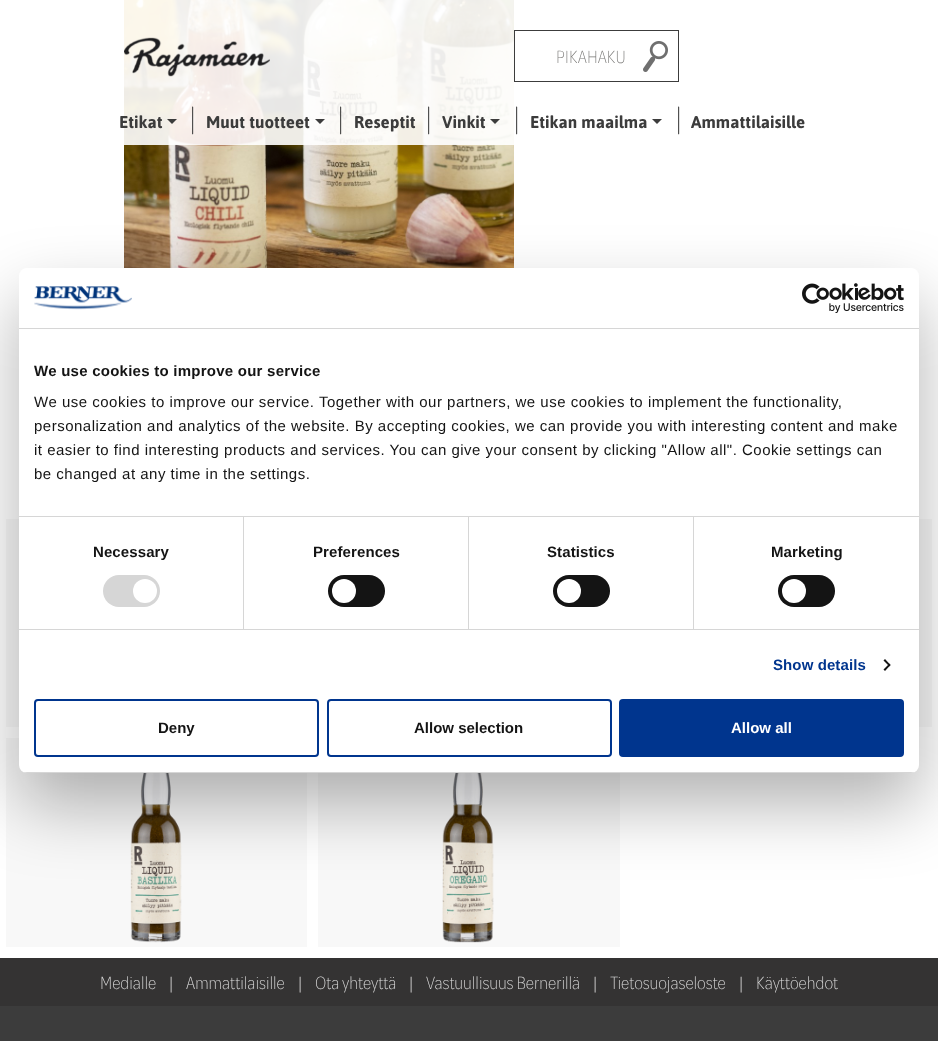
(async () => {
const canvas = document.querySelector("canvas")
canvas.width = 938
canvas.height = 1041
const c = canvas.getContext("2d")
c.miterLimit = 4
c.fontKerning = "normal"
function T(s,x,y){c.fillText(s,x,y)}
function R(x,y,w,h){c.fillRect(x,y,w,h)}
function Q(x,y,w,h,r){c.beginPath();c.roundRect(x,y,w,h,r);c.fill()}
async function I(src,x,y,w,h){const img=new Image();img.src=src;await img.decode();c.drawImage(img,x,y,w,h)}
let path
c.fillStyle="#fff"
R(0,0,938,1041)
await I("1.png",124,0,390,268)
c.fillStyle="#f8f8f8"
R(6,519,13,208)
R(919,519,13,208)
R(6,738,301,209)
await I("2.png",130,773,52,170)
R(318,773,302,174)
await I("3.png",442,773,52,170)
c.fillStyle="#ffffffe6"
R(124,0,390,145)
await I("4.png",124,37,146,40)
c.strokeStyle="#3c3c3c"
c.strokeRect(514.5,30.5,164,51)
c.font="200 19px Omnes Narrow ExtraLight"
c.fillStyle="#787775"
T("PIKAHAKU",556,63)
await I("5.png",643,41,25,31)
c.font="bold 17px Asap"
c.fillStyle="#3c3c3c"
T("Etikat",119,128)
path = new Path2D("M167 119h10l-5 5z")
c.fill(path)
c.font="200 33px Omnes Narrow ExtraLight"
T("|",189,128)
c.font="bold 17px Asap"
T("Muut tuotteet",206,128)
path = new Path2D("M315 119h10l-5 5z")
c.fill(path)
c.font="200 33px Omnes Narrow ExtraLight"
T("|",337,128)
c.font="bold 17px Asap"
T("Reseptit",354,128)
c.font="200 33px Omnes Narrow ExtraLight"
T("|",425,128)
c.font="bold 17px Asap"
T("Vinkit",442,128)
path = new Path2D("M490 119h10l-5 5z")
c.fill(path)
c.font="200 33px Omnes Narrow ExtraLight"
T("|",513,128)
c.font="bold 17px Asap"
T("Etikan maailma",530,128)
path = new Path2D("M652 119h10l-5 5z")
c.fill(path)
c.font="200 33px Omnes Narrow ExtraLight"
T("|",675,128)
c.font="bold 17px Asap"
T("Ammattilaisille",691,128)
R(0,1006,938,35)
c.fillStyle="#343333"
R(0,958,938,48)
c.font="200 19px Omnes Narrow ExtraLight"
c.fillStyle="#e1e1e1"
T("Medialle",100,989)
c.fillStyle="#fff"
T("|",169,989)
c.fillStyle="#e1e1e1"
T("Ammattilaisille",186,989)
c.fillStyle="#fff"
T("|",298,989)
c.fillStyle="#e1e1e1"
T("Ota yhteyttä",315,989)
c.fillStyle="#fff"
T("|",409,989)
c.fillStyle="#e1e1e1"
T("Vastuullisuus Bernerillä",426,989)
c.fillStyle="#fff"
T("|",593,989)
c.fillStyle="#e1e1e1"
T("Tietosuojaseloste",610,989)
c.fillStyle="#fff"
T("|",739,989)
c.fillStyle="#e1e1e1"
T("Käyttöehdot",756,989)
c.fillStyle="#0000004d"
c.filter="blur(34px)"
c.beginPath()
c.roundRect(19,300,900,505,8)
c.fill()
c.filter="none"
c.fillStyle="#fff"
Q(19,268,900,505,8)
c.fillStyle="#d6d6d6"
R(19,328,900,1)
await I("6.png",34,286,98,24)
await I("7.png",802,283,102,30)
R(19,516,900,1)
c.letterSpacing="0.25px"
c.font="bold 15px Liberation Sans"
c.fillStyle="#141414"
T("We use cookies to improve our service",34,376)
c.letterSpacing="0.5px"
c.font="15px Liberation Sans"
T("We use cookies to improve our service. Together with our partners, we use cookies to implement the functionality,",34,407)
T("personalization and analytics of the website. By accepting cookies, we can provide you with interesting content and make",34,431)
T("it easier to find interesting products and services. You can give your consent by clicking \"Allow all\". Cookie settings can",34,455)
T("be changed at any time in the settings.",34,479)
c.fillStyle="#d6d6d6"
R(19,629,900,1)
R(243,517,1,112)
c.letterSpacing="0.1px"
c.font="bold 15px Liberation Sans"
c.fillStyle="#141414"
T("Necessary",93,557)
c.fillStyle="#d6d6d6"
Q(103,575,57,32,16)
c.fillStyle="#fff"
c.beginPath()
c.arc(145,591,12,0,7)
c.fill()
c.fillStyle="#d6d6d6"
R(468,517,1,112)
c.fillStyle="#141414"
T("Preferences",313,557)
Q(328,575,57,32,16)
c.fillStyle="#fff"
c.beginPath()
c.arc(344,591,12,0,7)
c.fill()
c.fillStyle="#d6d6d6"
R(693,517,1,112)
c.fillStyle="#141414"
T("Statistics",547,557)
Q(553,575,57,32,16)
c.fillStyle="#fff"
c.beginPath()
c.arc(569,591,12,0,7)
c.fill()
c.fillStyle="#141414"
T("Marketing",771,557)
Q(778,575,57,32,16)
c.fillStyle="#fff"
c.beginPath()
c.arc(794,591,12,0,7)
c.fill()
c.fillStyle="#00358e"
T("Show details",773,670)
c.fillStyle="#141414"
path = new Path2D("M885 659l5.5 6l-1 1.5l-6-6z")
c.fill(path)
path = new Path2D("M889.5 663.5l1 1.5l-5.5 6l-1.5-1.5z")
c.fill(path)
c.save()
c.beginPath()
c.roundRect(19,268,900,505,8)
c.clip()
c.fillStyle="#d6d6d6"
R(19,772,900,1)
c.restore()
c.beginPath()
c.roundRect(35,700,283,56,3)
c.strokeStyle="#00358e"
c.lineWidth=2
c.stroke()
c.letterSpacing="0px"
T("Deny",158,733)
c.beginPath()
c.roundRect(328,700,283,56,3)
c.stroke()
T("Allow selection",414,733)
c.fillStyle="#00358e"
c.beginPath()
c.roundRect(620,700,283,56,3)
c.fill()
c.stroke()
c.fillStyle="#fff"
T("Allow all",731,733)
})()
